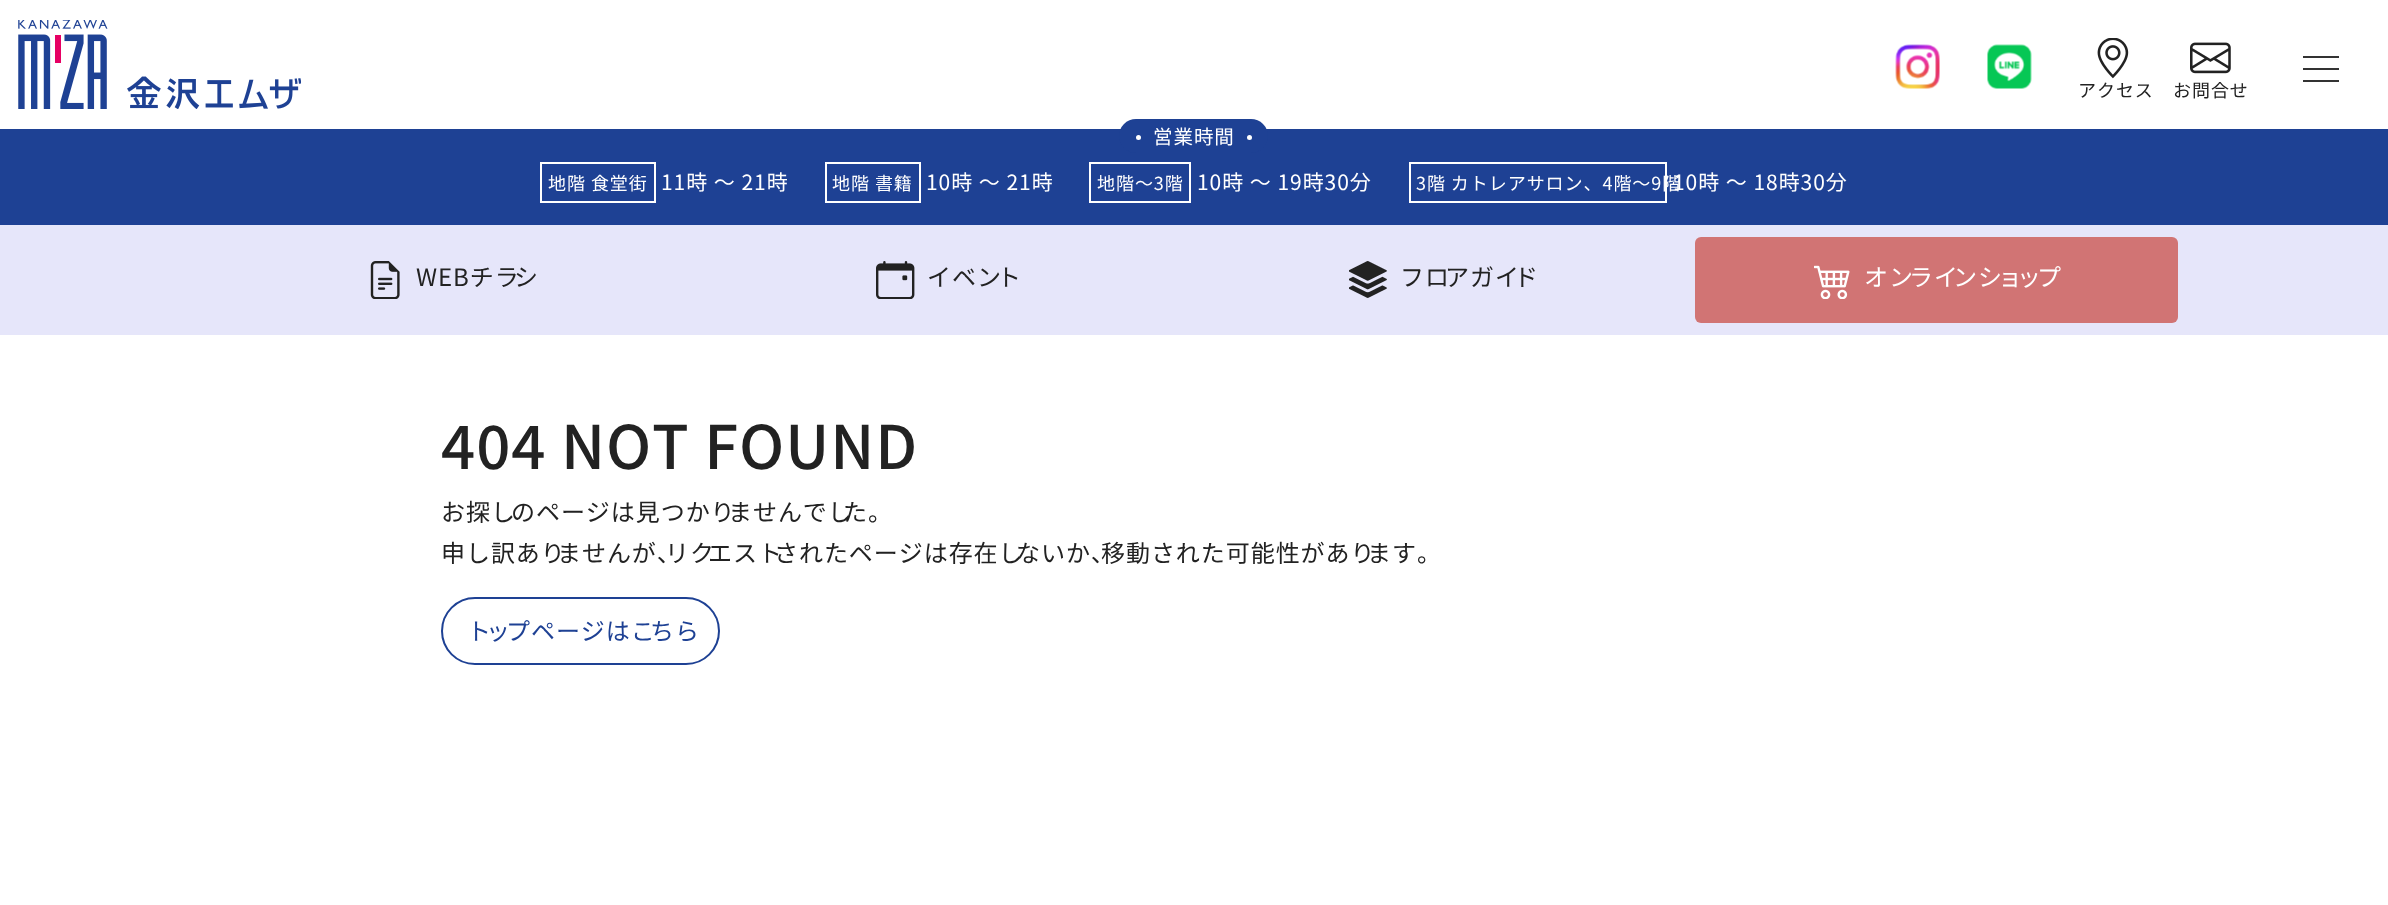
(async () => {
const canvas = document.querySelector("canvas")
canvas.width = 2388
canvas.height = 905
const c = canvas.getContext("2d")
c.miterLimit = 4
c.fontKerning = "none"
function T(s,x,y){c.fillText(s,x,y)}
function R(x,y,w,h){c.fillRect(x,y,w,h)}
function Q(x,y,w,h,r){c.beginPath();c.roundRect(x,y,w,h,r);c.fill()}
async function I(src,x,y,w,h){const img=new Image();img.src=src;await img.decode();c.drawImage(img,x,y,w,h)}
c.fillStyle="#fff"
R(0,0,2388,905)
await I("1.png",18,20,283,89)
await I("2.png",1895,44,45,45)
await I("3.png",1987,44,45,45)
c.fillStyle="#333"
R(2303,68,36,2)
R(2303,56,36,2)
R(2303,80,36,2)
await I("4.png",2097,38,32,41)
c.letterSpacing="0.95px"
c.font="18px Noto Sans JP"
c.fillStyle="#222"
T("アクセス",2078,97)
await I("5.png",2190,42,41,32)
T("お問合せ",2173,97)
c.fillStyle="#1e4194"
R(0,129,2388,96)
Q(1119,119,149,34,17)
c.fillStyle="#fff"
c.beginPath()
c.arc(1138.5,137.5,2.5,0,7)
c.fill()
c.font="19.5px Noto Sans JP"
T("営業時間",1153,144)
c.beginPath()
c.arc(1249.5,137.5,2.5,0,7)
c.fill()
c.strokeStyle="#fff"
c.lineWidth=2
c.strokeRect(541,163,114,39)
c.font="18px Noto Sans JP"
T("地階 食堂街",548,190)
c.font="21px Noto Sans JP"
T("11時 ～ 21時",661,190)
c.strokeRect(826,163,94,39)
c.font="18px Noto Sans JP"
T("地階 書籍",832,190)
c.font="21px Noto Sans JP"
T("10時 ～ 21時",926,190)
c.strokeRect(1090,163,100,39)
c.font="18px Noto Sans JP"
T("地階～3階",1097,190)
c.font="21px Noto Sans JP"
T("10時 ～ 19時30分",1197,190)
c.strokeRect(1410,163,256,39)
c.font="18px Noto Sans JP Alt"
T("3階 カトレアサロン、4階～9階",1416,190)
c.font="21px Noto Sans JP"
T("10時 ～ 18時30分",1673,190)
c.fillStyle="#e6e6fa"
R(0,225,2388,110)
await I("6.png",370,261,30,38)
c.font="24px Noto Sans JP"
c.fillStyle="#222"
T("WEBチラ",416,286)
T("シ",514,286)
await I("7.png",876,261,39,38)
T("イベン",927,286)
T("ト",997,286)
await I("8.png",1349,261,38,37)
T("フロ",1400,286)
T("アガイ",1445,286)
T("ド",1514,286)
c.fillStyle="#d17474"
Q(1695,237,483,86,6)
await I("9.png",1814,265,36,34)
c.fillStyle="#fff"
T("オン",1864,286)
T("ライ",1909,286)
T("ンシ",1953,286)
T("ョ",1998,286)
T("ッ",2017,286)
T("プ",2037,286)
c.font="500 60px Noto Sans JP"
c.fillStyle="#222"
T("404 NOT FOUND",441,469)
c.font="24px Noto Sans JP"
T("お探し",441,521)
T("のページは見つかり",511,521)
T("ませんでし",728,521)
T("た。",843,521)
T("申し訳あり",441,562)
T("ませんが、",557,562)
T("リク",665,562)
T("エスト",708,562)
T("されたページは存在し",774,562)
T("ないか、",1016,562)
T("移動された可能性があり",1101,562)
T("ます。",1367,562)
c.beginPath()
c.roundRect(442,598,277,66,33)
c.strokeStyle="#1e4194"
c.stroke()
c.fillStyle="#1e4194"
T("ト",467,640)
T("ッ",486,640)
T("プページはこ",506,640)
T("ちら",650,640)
})()
